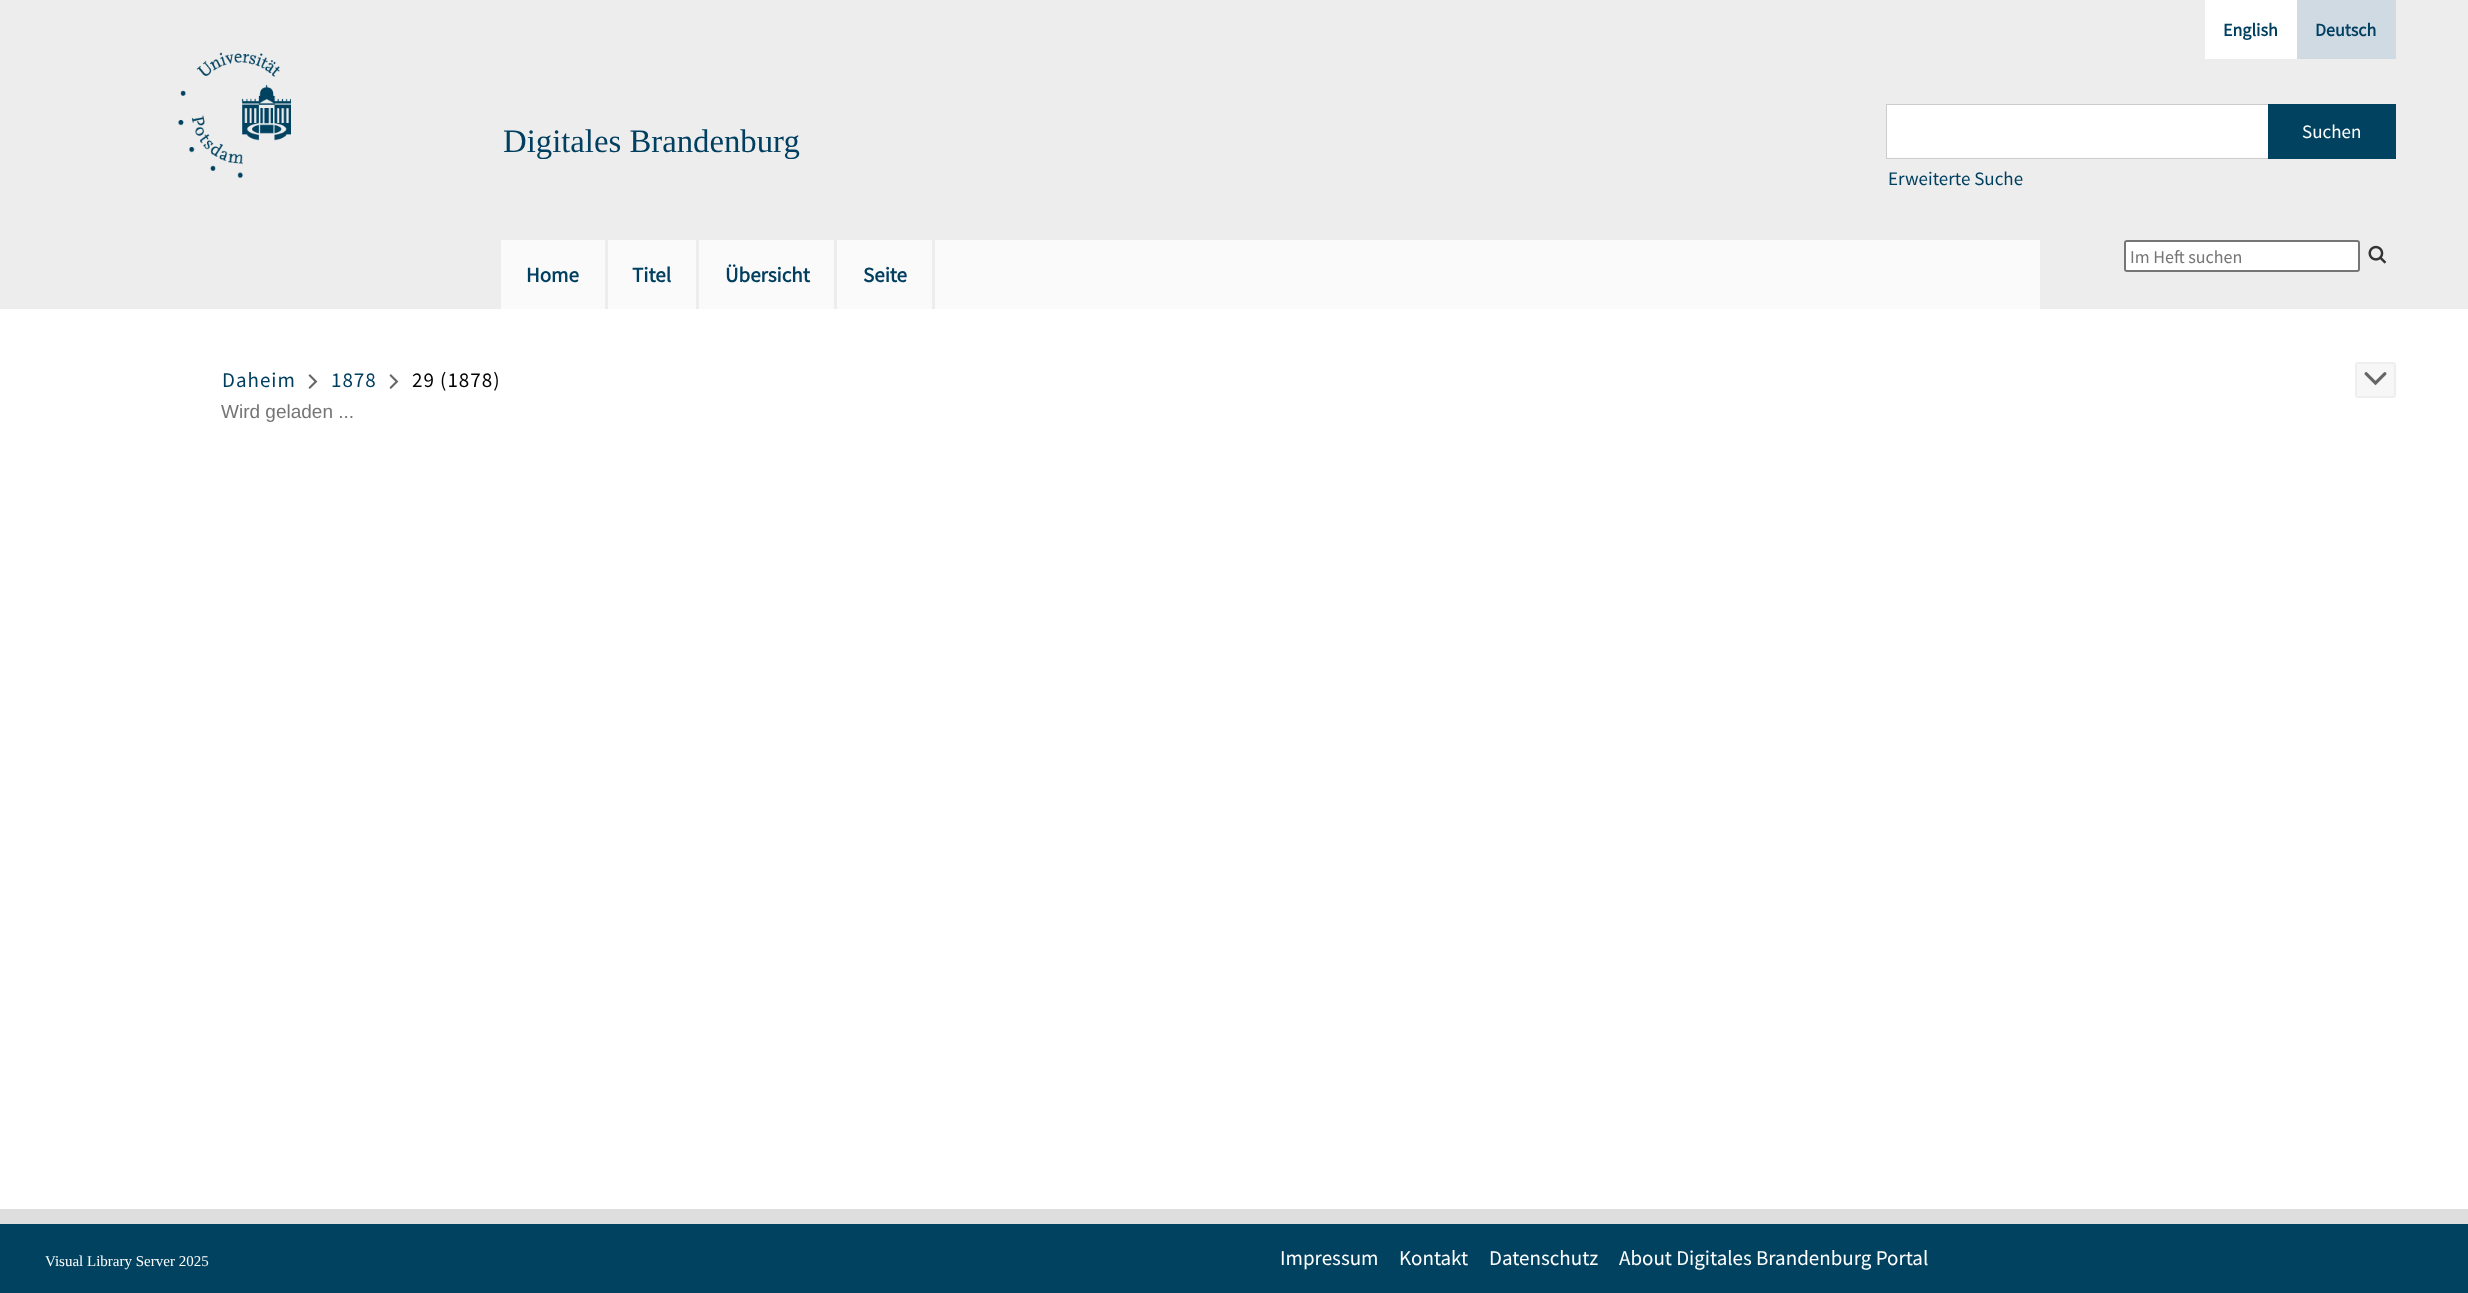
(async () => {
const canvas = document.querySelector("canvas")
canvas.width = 2468
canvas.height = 1293
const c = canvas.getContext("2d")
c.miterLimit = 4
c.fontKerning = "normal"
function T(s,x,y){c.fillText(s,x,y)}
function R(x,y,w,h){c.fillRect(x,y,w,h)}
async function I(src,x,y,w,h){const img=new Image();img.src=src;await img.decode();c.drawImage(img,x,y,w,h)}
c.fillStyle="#fff"
R(0,0,2468,1293)
c.fillStyle="#ededed"
R(0,0,2468,309)
await I("1.png",178,52,113,126)
c.font="32.75px Liberation Serif"
c.fillStyle="#003f60"
T("Digitales Brandenburg",503,152)
c.fillStyle="#fff"
R(2205,0,92,59)
c.font="bold 18px Source Sans Pro"
c.fillStyle="#003f60"
T("English",2223,36)
c.fillStyle="#cfdae3"
R(2297,0,99,59)
c.fillStyle="#003f60"
T("Deutsch",2315,36)
c.strokeStyle="#ccc"
c.lineWidth=2
c.strokeRect(1887,105,508,53)
c.fillStyle="#fff"
R(1887,105,381,53)
c.fillStyle="#004260"
R(2268,104,128,55)
c.font="19px Source Sans Pro"
c.fillStyle="#fff"
T("Suchen",2302,138)
c.fillStyle="#003f60"
T("Erweiterte Suche",1888,185)
c.fillStyle="#fff"
c.beginPath()
c.roundRect(2125,241,234,30,2)
c.fill()
c.strokeStyle="#767676"
c.stroke()
c.font="18px Source Sans Pro"
c.fillStyle="#757575"
T("Im Heft suchen",2130,263)
await I("2.png",2368,245,19,19)
c.fillStyle="#fafafa"
R(501,240,1539,69)
c.fillStyle="#ededed"
R(605,240,3,69)
c.font="bold 21px Source Sans Pro"
c.fillStyle="#003f60"
T("Home",526,282)
c.fillStyle="#ededed"
R(696,240,3,69)
c.fillStyle="#003f60"
T("Titel",632,282)
c.fillStyle="#ededed"
R(834,240,3,69)
c.fillStyle="#003f60"
T("Übersicht",725,282)
c.fillStyle="#ededed"
R(932,240,3,69)
c.fillStyle="#003f60"
T("Seite",863,282)
c.letterSpacing="1px"
c.font="21px Source Sans Pro"
T("Daheim",222,387)
await I("3.png",308,374,10,15)
T("1878",331,387)
await I("3.png",389,374,10,15)
c.fillStyle="#000"
T("29 (1878)",412,387)
c.fillStyle="#f7f7f8"
c.beginPath()
c.roundRect(2356,363,39,34,2)
c.fill()
c.strokeStyle="#eee"
c.stroke()
await I("4.png",2364,372,23,14)
c.letterSpacing="0px"
c.font="19px Liberation Sans"
c.fillStyle="#757575"
T("Wird geladen ...",221,418)
c.fillStyle="#004260"
R(0,1224,2468,69)
c.fillStyle="#dedede"
R(0,1209,2468,15)
c.font="15px Liberation Serif"
c.fillStyle="#fff"
T("Visual Library Server 2025",45,1266)
c.font="21px Source Sans Pro"
T("Impressum",1280,1265)
T("Kontakt",1399,1265)
T("Datenschutz",1489,1265)
T("About Digitales Brandenburg Portal",1619,1265)
})()
